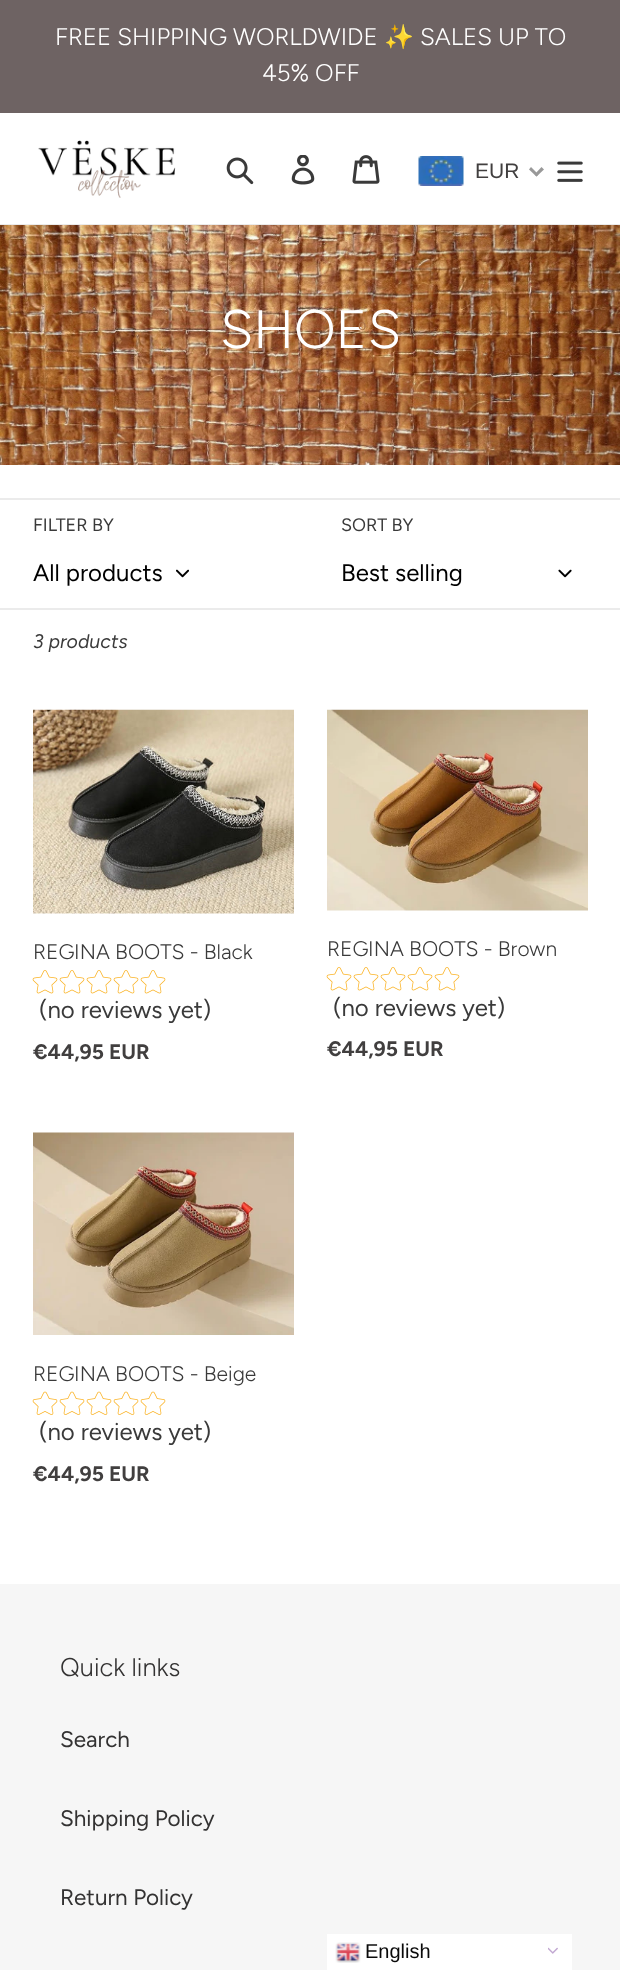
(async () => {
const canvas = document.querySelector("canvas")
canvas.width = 620
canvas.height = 1970
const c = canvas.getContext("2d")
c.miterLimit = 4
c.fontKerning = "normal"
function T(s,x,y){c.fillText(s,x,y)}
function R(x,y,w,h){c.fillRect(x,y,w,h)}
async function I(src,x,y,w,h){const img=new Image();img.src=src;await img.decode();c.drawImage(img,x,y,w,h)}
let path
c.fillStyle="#fff"
R(0,0,620,1970)
c.fillStyle="#6e6363"
R(0,0,620,113)
c.font="300 24px Figtree"
c.fillStyle="#fff"
T("FREE SHIPPING WORLDWIDE",55,45)
c.font="24px Noto Color Emoji"
T("✨",384,45)
c.font="300 24px Figtree"
T("SALES UP TO",420,45)
T("45% OFF",262,81)
c.fillStyle="#ebebeb"
R(0,224,620,1)
await I("1.png",38,140,138,58)
await I("2.png",226,157,28,28)
await I("3.png",291,155,24,30)
await I("4.png",352,155,28,29)
await I("5.png",557,161,26,21)
await I("6.png",418,156,46,30)
c.font="21px Liberation Sans"
c.fillStyle="#413f3f"
T("EUR",475,178)
c.fillStyle="#999"
path = new Path2D("M541.5 167l2.5 2.5l-7.5 7l-2-2z")
c.fill(path)
path = new Path2D("M531 167l7.5 7.5l-2 2l-7.5-7z")
c.fill(path)
await I("7.png",0,225,620,240)
c.font="300 54px Figtree"
c.fillStyle="#fff"
T("SHOES",220,348)
c.font="15px Liberation Sans"
c.fillStyle="#ac744a"
T("o",358,330)
c.fillStyle="#ebebeb"
R(0,498,620,2)
c.font="18px Figtree"
c.fillStyle="#3a3a3a"
T("FILTER BY",33,531)
c.font="24px Figtree"
c.fillStyle="#000"
T("All products",33,581)
await I("8.png",176,569,13,9)
c.font="18px Figtree"
c.fillStyle="#3a3a3a"
T("SORT BY",341,531)
c.font="24px Figtree"
c.fillStyle="#000"
T("Best selling",341,581)
await I("9.png",558,569,14,9)
c.fillStyle="#ebebeb"
R(0,608,620,2)
c.font="italic 19.5px Figtree"
c.fillStyle="#3a3a3a"
T("3 products",33,648)
await I("10.png",33,709,261,205)
c.font="300 21px Figtree"
T("REGINA BOOTS - Black",33,959)
await I("11.png",32,970,26,24)
await I("11.png",59,970,26,24)
await I("11.png",86,970,26,24)
await I("11.png",113,970,26,24)
await I("11.png",140,970,26,24)
c.font="24px Figtree"
T("(no reviews yet)",39,1018)
c.font="bold 21px Figtree"
c.fillStyle="#413f3f"
T("€44,95 EUR",33,1059)
await I("12.png",327,709,261,202)
c.font="300 21px Figtree"
c.fillStyle="#3a3a3a"
T("REGINA BOOTS - Brown",327,956)
await I("11.png",326,967,26,24)
await I("11.png",353,967,26,24)
await I("11.png",380,967,26,24)
await I("11.png",407,967,26,24)
await I("11.png",434,967,26,24)
c.font="24px Figtree"
T("(no reviews yet)",333,1016)
c.font="bold 21px Figtree"
c.fillStyle="#413f3f"
T("€44,95 EUR",327,1056)
await I("13.png",33,1132,261,203)
c.font="300 21px Figtree"
c.fillStyle="#3a3a3a"
T("REGINA BOOTS - Beige",33,1381)
await I("14.png",32,1391,26,24)
await I("14.png",59,1391,26,24)
await I("14.png",86,1391,26,24)
await I("14.png",113,1391,26,24)
await I("14.png",140,1391,26,24)
c.font="24px Figtree"
T("(no reviews yet)",39,1440)
c.font="bold 21px Figtree"
c.fillStyle="#413f3f"
T("€44,95 EUR",33,1481)
c.fillStyle="#f6f6f6"
R(0,1584,620,386)
c.font="300 25.5px Figtree"
c.fillStyle="#333232"
T("Quick links",60,1676)
c.font="22.5px Figtree"
T("Search",60,1747)
T("Shipping Policy",60,1826)
T("Return Policy",60,1905)
c.fillStyle="#fff"
R(327,1934,245,36)
await I("15.png",335,1942,26,21)
c.font="20px Liberation Sans"
c.fillStyle="#0a0a0a"
T("English",365,1958)
await I("16.png",548,1947,10,7)
})()
